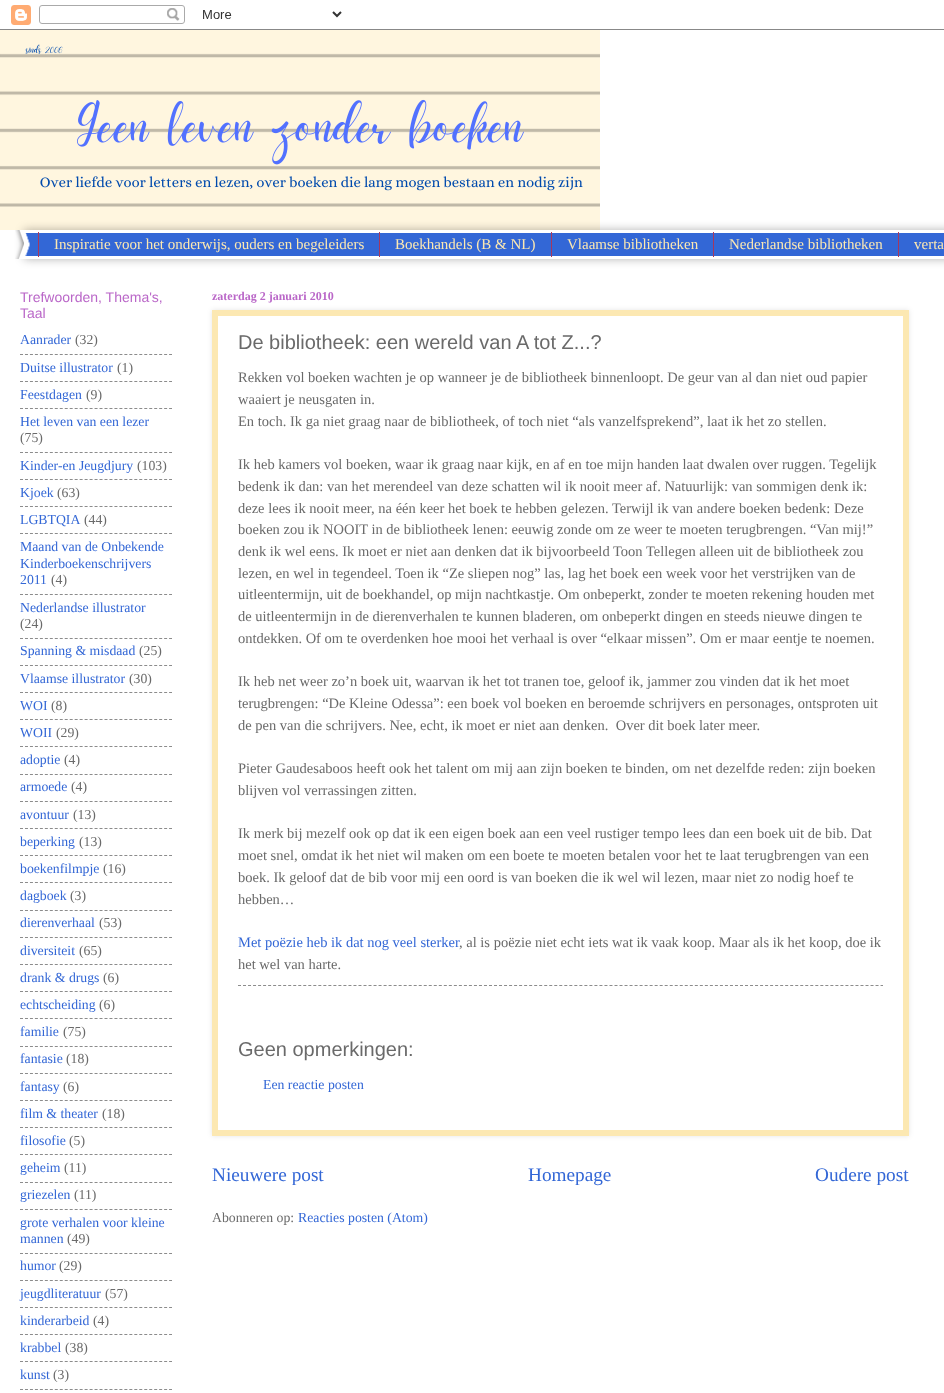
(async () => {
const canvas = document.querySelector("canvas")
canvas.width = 944
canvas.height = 1393
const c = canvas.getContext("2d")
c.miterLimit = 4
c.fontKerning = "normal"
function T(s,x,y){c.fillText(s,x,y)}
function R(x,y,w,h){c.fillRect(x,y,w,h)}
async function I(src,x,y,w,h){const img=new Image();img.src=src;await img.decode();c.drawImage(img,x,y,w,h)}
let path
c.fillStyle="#fff"
R(0,0,944,1393)
await I("1.png",0,5,944,25)
await I("2.png",0,30,600,200)
c.fillStyle="#0000004d"
c.filter="blur(5px)"
c.beginPath()
c.rect(24,230,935,29)
c.fill()
c.filter="none"
c.fillStyle="#3367d6"
R(25,233,919,23)
c.fillStyle="#fff"
R(24,230,920,3)
R(24,256,920,3)
await I("3.png",15,230,15,29)
c.fillStyle="#a6375e"
R(379,232,1,25)
R(38,232,1,25)
c.font="15px Liberation Serif"
c.fillStyle="#fce8b2"
T("Inspiratie voor het onderwijs, ouders en begeleiders",54,249)
c.fillStyle="#a6375e"
R(551,232,1,25)
c.fillStyle="#fce8b2"
T("Boekhandels (B & NL)",395,249)
c.fillStyle="#a6375e"
R(713,232,1,25)
c.fillStyle="#fce8b2"
T("Vlaamse bibliotheken",567,249)
c.fillStyle="#a6375e"
R(898,232,1,25)
c.fillStyle="#fce8b2"
T("Nederlandse bibliotheken",729,249)
T("verta",914,249)
c.font="14px Liberation Sans"
c.fillStyle="#ba67c8"
T("Trefwoorden, Thema's,",20,302)
T("Taal",20,318)
c.font="13.75px Liberation Serif"
c.fillStyle="#3367d6"
T("Aanrader",20,344)
c.fillStyle="#6a6a6a"
T("(32)",75,344)
path = new Path2D("M20 354.5h152")
c.strokeStyle="#8c8c8c"
c.setLineDash([3,1.97])
c.stroke(path)
c.fillStyle="#3367d6"
T("Duitse illustrator",20,372)
c.fillStyle="#6a6a6a"
T("(1)",117,372)
path = new Path2D("M20 381.5h152")
c.stroke(path)
c.fillStyle="#3367d6"
T("Feestdagen",20,399)
c.fillStyle="#6a6a6a"
T("(9)",86,399)
path = new Path2D("M20 408.5h152")
c.stroke(path)
c.fillStyle="#3367d6"
T("Het leven van een lezer",20,426)
c.fillStyle="#6a6a6a"
T("(75)",20,442)
path = new Path2D("M20 452.5h152")
c.stroke(path)
c.fillStyle="#3367d6"
T("Kinder-en Jeugdjury",20,470)
c.fillStyle="#6a6a6a"
T("(103)",137,470)
path = new Path2D("M20 479.5h152")
c.stroke(path)
c.fillStyle="#3367d6"
T("Kjoek",20,497)
c.fillStyle="#6a6a6a"
T("(63)",57,497)
path = new Path2D("M20 506.5h152")
c.stroke(path)
c.fillStyle="#3367d6"
T("LGBTQIA",20,524)
c.fillStyle="#6a6a6a"
T("(44)",84,524)
path = new Path2D("M20 533.5h152")
c.stroke(path)
c.fillStyle="#3367d6"
T("Maand van de Onbekende",20,551)
T("Kinderboekenschrijvers",20,568)
T("2011",20,584)
c.fillStyle="#6a6a6a"
T("(4)",51,584)
path = new Path2D("M20 594.5h152")
c.stroke(path)
c.fillStyle="#3367d6"
T("Nederlandse illustrator",20,612)
c.fillStyle="#6a6a6a"
T("(24)",20,628)
path = new Path2D("M20 638.5h152")
c.stroke(path)
c.fillStyle="#3367d6"
T("Spanning & misdaad",20,655)
c.fillStyle="#6a6a6a"
T("(25)",139,655)
path = new Path2D("M20 665.5h152")
c.stroke(path)
c.fillStyle="#3367d6"
T("Vlaamse illustrator",20,683)
c.fillStyle="#6a6a6a"
T("(30)",129,683)
path = new Path2D("M20 692.5h152")
c.stroke(path)
c.fillStyle="#3367d6"
T("WOI",20,710)
c.fillStyle="#6a6a6a"
T("(8)",51,710)
path = new Path2D("M20 719.5h152")
c.stroke(path)
c.fillStyle="#3367d6"
T("WOII",20,737)
c.fillStyle="#6a6a6a"
T("(29)",56,737)
path = new Path2D("M20 746.5h152")
c.stroke(path)
c.fillStyle="#3367d6"
T("adoptie",20,764)
c.fillStyle="#6a6a6a"
T("(4)",64,764)
path = new Path2D("M20 774.5h152")
c.stroke(path)
c.fillStyle="#3367d6"
T("armoede",20,791)
c.fillStyle="#6a6a6a"
T("(4)",71,791)
path = new Path2D("M20 801.5h152")
c.stroke(path)
c.fillStyle="#3367d6"
T("avontuur",20,819)
c.fillStyle="#6a6a6a"
T("(13)",73,819)
path = new Path2D("M20 828.5h152")
c.stroke(path)
c.fillStyle="#3367d6"
T("beperking",20,846)
c.fillStyle="#6a6a6a"
T("(13)",79,846)
path = new Path2D("M20 855.5h152")
c.stroke(path)
c.fillStyle="#3367d6"
T("boekenfilmpje",20,873)
c.fillStyle="#6a6a6a"
T("(16)",103,873)
path = new Path2D("M20 882.5h152")
c.stroke(path)
c.fillStyle="#3367d6"
T("dagboek",20,900)
c.fillStyle="#6a6a6a"
T("(3)",70,900)
path = new Path2D("M20 910.5h152")
c.stroke(path)
c.fillStyle="#3367d6"
T("dierenverhaal",20,927)
c.fillStyle="#6a6a6a"
T("(53)",99,927)
path = new Path2D("M20 937.5h152")
c.stroke(path)
c.fillStyle="#3367d6"
T("diversiteit",20,955)
c.fillStyle="#6a6a6a"
T("(65)",79,955)
path = new Path2D("M20 964.5h152")
c.stroke(path)
c.fillStyle="#3367d6"
T("drank & drugs",20,982)
c.fillStyle="#6a6a6a"
T("(6)",103,982)
path = new Path2D("M20 991.5h152")
c.stroke(path)
c.fillStyle="#3367d6"
T("echtscheiding",20,1009)
c.fillStyle="#6a6a6a"
T("(6)",99,1009)
path = new Path2D("M20 1018.5h152")
c.stroke(path)
c.fillStyle="#3367d6"
T("familie",20,1036)
c.fillStyle="#6a6a6a"
T("(75)",63,1036)
path = new Path2D("M20 1046.5h152")
c.stroke(path)
c.fillStyle="#3367d6"
T("fantasie",20,1063)
c.fillStyle="#6a6a6a"
T("(18)",66,1063)
path = new Path2D("M20 1073.5h152")
c.stroke(path)
c.fillStyle="#3367d6"
T("fantasy",20,1091)
c.fillStyle="#6a6a6a"
T("(6)",63,1091)
path = new Path2D("M20 1100.5h152")
c.stroke(path)
c.fillStyle="#3367d6"
T("film & theater",20,1118)
c.fillStyle="#6a6a6a"
T("(18)",102,1118)
path = new Path2D("M20 1127.5h152")
c.stroke(path)
c.fillStyle="#3367d6"
T("filosofie",20,1145)
c.fillStyle="#6a6a6a"
T("(5)",69,1145)
path = new Path2D("M20 1154.5h152")
c.stroke(path)
c.fillStyle="#3367d6"
T("geheim",20,1172)
c.fillStyle="#6a6a6a"
T("(11)",64,1172)
path = new Path2D("M20 1182.5h152")
c.stroke(path)
c.fillStyle="#3367d6"
T("griezelen",20,1199)
c.fillStyle="#6a6a6a"
T("(11)",74,1199)
path = new Path2D("M20 1209.5h152")
c.stroke(path)
c.fillStyle="#3367d6"
T("grote verhalen voor kleine",20,1227)
T("mannen",20,1243)
c.fillStyle="#6a6a6a"
T("(49)",67,1243)
path = new Path2D("M20 1253.5h152")
c.stroke(path)
c.fillStyle="#3367d6"
T("humor",20,1270)
c.fillStyle="#6a6a6a"
T("(29)",59,1270)
path = new Path2D("M20 1280.5h152")
c.stroke(path)
c.fillStyle="#3367d6"
T("jeugdliteratuur",20,1298)
c.fillStyle="#6a6a6a"
T("(57)",105,1298)
path = new Path2D("M20 1307.5h152")
c.stroke(path)
c.fillStyle="#3367d6"
T("kinderarbeid",20,1325)
c.fillStyle="#6a6a6a"
T("(4)",93,1325)
path = new Path2D("M20 1334.5h152")
c.stroke(path)
c.fillStyle="#3367d6"
T("krabbel",20,1352)
c.fillStyle="#6a6a6a"
T("(38)",65,1352)
path = new Path2D("M20 1361.5h152")
c.stroke(path)
c.fillStyle="#3367d6"
T("kunst",20,1379)
c.fillStyle="#6a6a6a"
T("(3)",53,1379)
path = new Path2D("M20 1389.5h152")
c.stroke(path)
c.save()
path = new Path2D("M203 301h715v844h-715zm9 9h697v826h-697z")
c.clip(path,"evenodd")
c.fillStyle="#0000001a"
c.filter="blur(2.5px)"
c.beginPath()
c.rect(212,310,697,826)
c.fill()
c.filter="none"
c.restore()
c.font="bold 12px Liberation Serif"
c.fillStyle="#ba67c8"
T("zaterdag 2 januari 2010",212,300)
c.strokeStyle="#fce8b2"
c.lineWidth=6
c.setLineDash([])
c.strokeRect(215,313,691,820)
c.font="20px Liberation Sans"
c.fillStyle="#6a6a6a"
T("De bibliotheek: een wereld van A tot Z...?",238,349)
c.font="14.5px Liberation Serif"
T("Rekken vol boeken wachten je op wanneer je de bibliotheek binnenloopt. De geur van al dan niet oud papier",238,382)
T("waaiert je neusgaten in.",238,404)
T("En toch. Ik ga niet graag naar de bibliotheek, of toch niet “als vanzelfsprekend”, laat ik het zo stellen.",238,426)
T("Ik heb kamers vol boeken, waar ik graag naar kijk, en af en toe mijn handen laat dwalen over ruggen. Tegelijk",238,469)
T("bedenk ik dan: van het merendeel van deze schatten wil ik nooit meer af. Natuurlijk: van sommigen denk ik:",238,491)
T("deze lees ik nooit meer, na één keer het boek te hebben gelezen. Terwijl ik van andere boeken bedenk: Deze",238,513)
T("boeken zou ik NOOIT in de bibliotheek lenen: eeuwig zonde om ze weer te moeten terugbrengen. “Van mij!”",238,534)
T("denk ik wel eens. Ik moet er niet aan denken dat ik bijvoorbeeld Toon Tellegen alleen uit de bibliotheek zou",238,556)
T("lezen, en wel in tegendeel. Toen ik “Ze sliepen nog” las, lag het boek een week voor het verstrijken van de",238,578)
T("uitleentermijn, uit de boekhandel, op mijn nachtkastje. Om onbeperkt, zonder te moeten rekening houden met",238,599)
T("de uitleentermijn in de dierenverhalen te kunnen bladeren, om onbeperkt dingen en steeds nieuwe dingen te",238,621)
T("ontdekken. Of om te overdenken hoe mooi het verhaal is over “elkaar missen”. Om er maar eentje te noemen.",238,643)
T("Ik heb net weer zo’n boek uit, waarvan ik het tot tranen toe, geloof ik, jammer zou vinden dat ik het moet",238,686)
T("terugbrengen: “De Kleine Odessa”: een boek vol boeken en beroemde schrijvers en personages, ontsproten uit",238,708)
T("de pen van die schrijvers. Nee, echt, ik moet er niet aan denken.  Over dit boek later meer.",238,730)
T("Pieter Gaudesaboos heeft ook het talent om mij aan zijn boeken te binden, om net dezelfde reden: zijn boeken",238,773)
T("blijven vol verrassingen zitten.",238,795)
T("Ik merk bij mezelf ook op dat ik een eigen boek aan een veel rustiger tempo lees dan een boek uit de bib. Dat",238,838)
T("moet snel, omdat ik het niet wil maken om een boete te moeten betalen voor het te laat terugbrengen van een",238,860)
T("boek. Ik geloof dat de bib voor mij een oord is van boeken die ik wel wil lezen, maar niet zo nodig hoef te",238,882)
T("hebben…",238,904)
c.fillStyle="#3367d6"
T("Met poëzie heb ik dat nog veel sterker",238,947)
c.fillStyle="#6a6a6a"
T(", al is poëzie niet echt iets wat ik vaak koop. Maar als ik het koop, doe ik",459,947)
T("het wel van harte.",238,969)
path = new Path2D("M238 985.5h645")
c.strokeStyle="#8c8c8c"
c.lineWidth=1
c.setLineDash([3,2.02])
c.stroke(path)
c.font="20px Liberation Sans"
T("Geen opmerkingen:",238,1056)
c.font="13.75px Liberation Serif"
c.fillStyle="#3367d6"
T("Een reactie posten",263,1089)
c.font="19.25px Liberation Serif"
T("Nieuwere post",212,1181)
T("Homepage",528,1181)
T("Oudere post",815,1181)
c.font="13.75px Liberation Serif"
c.fillStyle="#6a6a6a"
T("Abonneren op:",212,1222)
c.fillStyle="#3367d6"
T("Reacties posten (Atom)",298,1222)
})()
